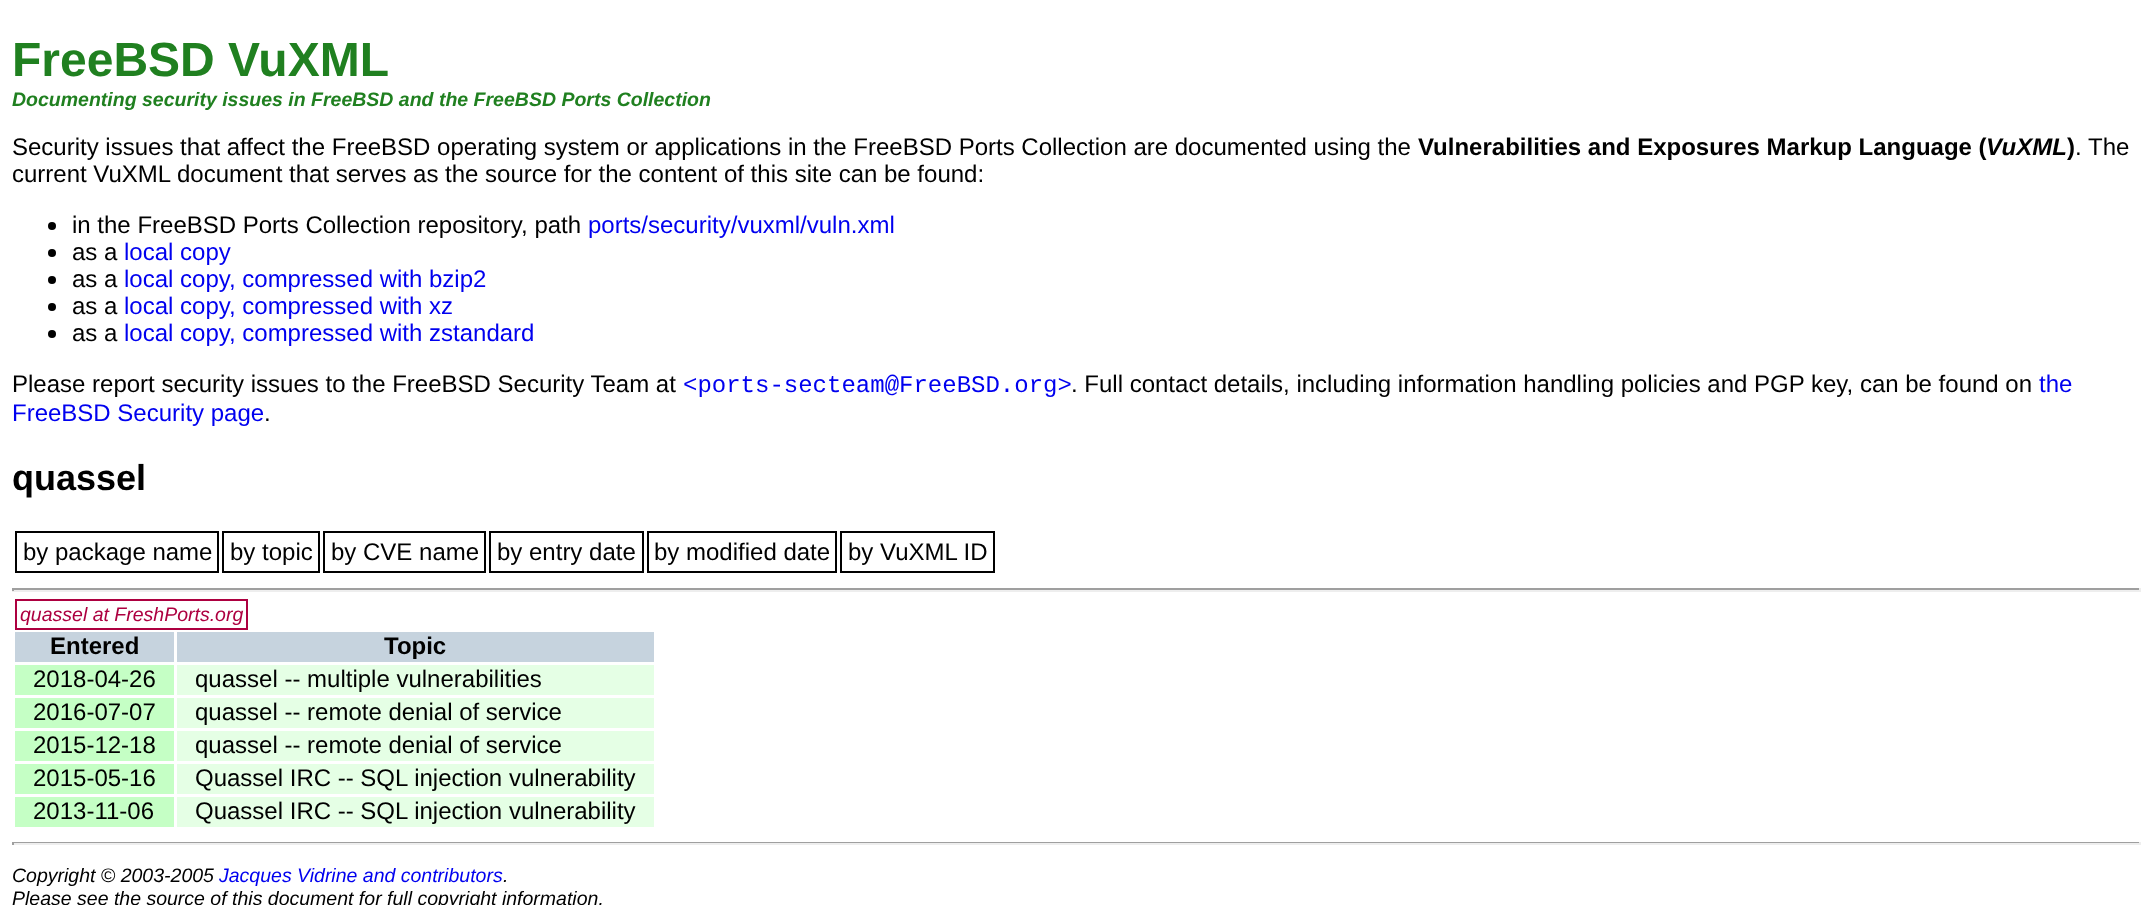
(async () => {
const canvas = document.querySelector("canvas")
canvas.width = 2152
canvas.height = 905
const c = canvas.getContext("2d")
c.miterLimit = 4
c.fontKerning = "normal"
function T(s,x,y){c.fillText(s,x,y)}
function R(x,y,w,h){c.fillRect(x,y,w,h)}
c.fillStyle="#fff"
R(0,0,2152,905)
c.font="bold 48px Liberation Sans"
c.fillStyle="#208020"
T("FreeBSD VuXML",12,76)
c.font="italic bold 19.5px Liberation Sans"
T("Documenting security issues in FreeBSD and the FreeBSD Ports Collection",12,106)
c.font="24px Liberation Sans"
c.fillStyle="#000"
T("Security issues that affect the FreeBSD operating system or applications in the FreeBSD Ports Collection are documented using the",12,155)
c.font="bold 24px Liberation Sans"
T("Vulnerabilities and Exposures Markup Language (",1418,155)
c.font="italic bold 24px Liberation Sans"
T("VuXML",1986,155)
c.font="bold 24px Liberation Sans"
T(")",2067,155)
c.font="24px Liberation Sans"
T(".",2075,155)
T("The",2088,155)
T("current VuXML document that serves as the source for the content of this site can be found:",12,182)
c.beginPath()
c.arc(52,226,4,0,7)
c.fill()
T("in the FreeBSD Ports Collection repository, path",72,233)
c.fillStyle="#0000ef"
T("ports/security/vuxml/vuln.xml",588,233)
c.fillStyle="#000"
c.beginPath()
c.arc(52,253,4,0,7)
c.fill()
T("as a",72,260)
c.fillStyle="#0000ef"
T("local copy",124,260)
c.fillStyle="#000"
c.beginPath()
c.arc(52,280,4,0,7)
c.fill()
T("as a",72,287)
c.fillStyle="#0000ef"
T("local copy, compressed with bzip2",124,287)
c.fillStyle="#000"
c.beginPath()
c.arc(52,307,4,0,7)
c.fill()
T("as a",72,314)
c.fillStyle="#0000ef"
T("local copy, compressed with xz",124,314)
c.fillStyle="#000"
c.beginPath()
c.arc(52,334,4,0,7)
c.fill()
T("as a",72,341)
c.fillStyle="#0000ef"
T("local copy, compressed with zstandard",124,341)
c.fillStyle="#000"
T("Please report security issues to the FreeBSD Security Team at",12,392)
c.font="24px Liberation Mono"
c.fillStyle="#0000ef"
T("<ports-secteam@FreeBSD.org>",683,392)
c.font="24px Liberation Sans"
c.fillStyle="#000"
T(". Full contact details, including information handling policies and PGP key, can be found on",1071,392)
c.fillStyle="#0000ef"
T("the",2039,392)
T("FreeBSD Security page",12,421)
c.fillStyle="#000"
T(".",264,421)
c.font="bold 36px Liberation Sans"
T("quassel",12,490)
c.strokeStyle="#000"
c.lineWidth=2
c.strokeRect(16,532,202,40)
c.font="24px Liberation Sans"
T("by package name",23,560)
c.strokeRect(223,532,96,40)
T("by topic",230,560)
c.strokeRect(324,532,161,40)
T("by CVE name",331,560)
c.strokeRect(490,532,153,40)
T("by entry date",497,560)
c.strokeRect(648,532,188,40)
T("by modified date",654,560)
c.strokeRect(841,532,153,40)
T("by VuXML ID",848,560)
c.fillStyle="#9f9f9f"
R(12,588,2129,2)
c.fillStyle="#eee"
R(2139,588,2,3)
R(12,590,2129,2)
c.fillStyle="#9f9f9f"
R(12,588,2,3)
c.strokeStyle="#ad0040"
c.strokeRect(16,600,231,29)
c.font="italic 19.5px Liberation Sans"
c.fillStyle="#ad0040"
T("quassel at FreshPorts.org",20,621)
c.fillStyle="#c6d3de"
R(15,632,159,30)
c.font="bold 24px Liberation Sans"
c.fillStyle="#000"
T("Entered",50,654)
c.fillStyle="#c6d3de"
R(177,632,477,30)
c.fillStyle="#000"
T("Topic",384,654)
c.fillStyle="#c5ffc5"
R(15,665,159,30)
c.font="24px Liberation Sans"
c.fillStyle="#000"
T("2018-04-26",33,687)
c.fillStyle="#e5ffe5"
R(177,665,477,30)
c.fillStyle="#000"
T("quassel -- multiple vulnerabilities",195,687)
c.fillStyle="#c5ffc5"
R(15,698,159,30)
c.fillStyle="#000"
T("2016-07-07",33,720)
c.fillStyle="#e5ffe5"
R(177,698,477,30)
c.fillStyle="#000"
T("quassel -- remote denial of service",195,720)
c.fillStyle="#c5ffc5"
R(15,731,159,30)
c.fillStyle="#000"
T("2015-12-18",33,753)
c.fillStyle="#e5ffe5"
R(177,731,477,30)
c.fillStyle="#000"
T("quassel -- remote denial of service",195,753)
c.fillStyle="#c5ffc5"
R(15,764,159,30)
c.fillStyle="#000"
T("2015-05-16",33,786)
c.fillStyle="#e5ffe5"
R(177,764,477,30)
c.fillStyle="#000"
T("Quassel IRC -- SQL injection vulnerability",195,786)
c.fillStyle="#c5ffc5"
R(15,797,159,30)
c.fillStyle="#000"
T("2013-11-06",33,819)
c.fillStyle="#e5ffe5"
R(177,797,477,30)
c.fillStyle="#000"
T("Quassel IRC -- SQL injection vulnerability",195,819)
c.fillStyle="#9f9f9f"
R(12,842,2129,1)
c.fillStyle="#eee"
R(2139,842,2,3)
R(12,843,2129,2)
c.fillStyle="#9f9f9f"
R(12,842,2,3)
c.font="italic 19.5px Liberation Sans"
c.fillStyle="#000"
T("Copyright © 2003-2005",12,882)
c.fillStyle="#0000ef"
T("Jacques Vidrine and contributors",219,882)
c.fillStyle="#000"
T(".",503,882)
T("Please see the source of this document for full copyright information.",12,905)
})()
